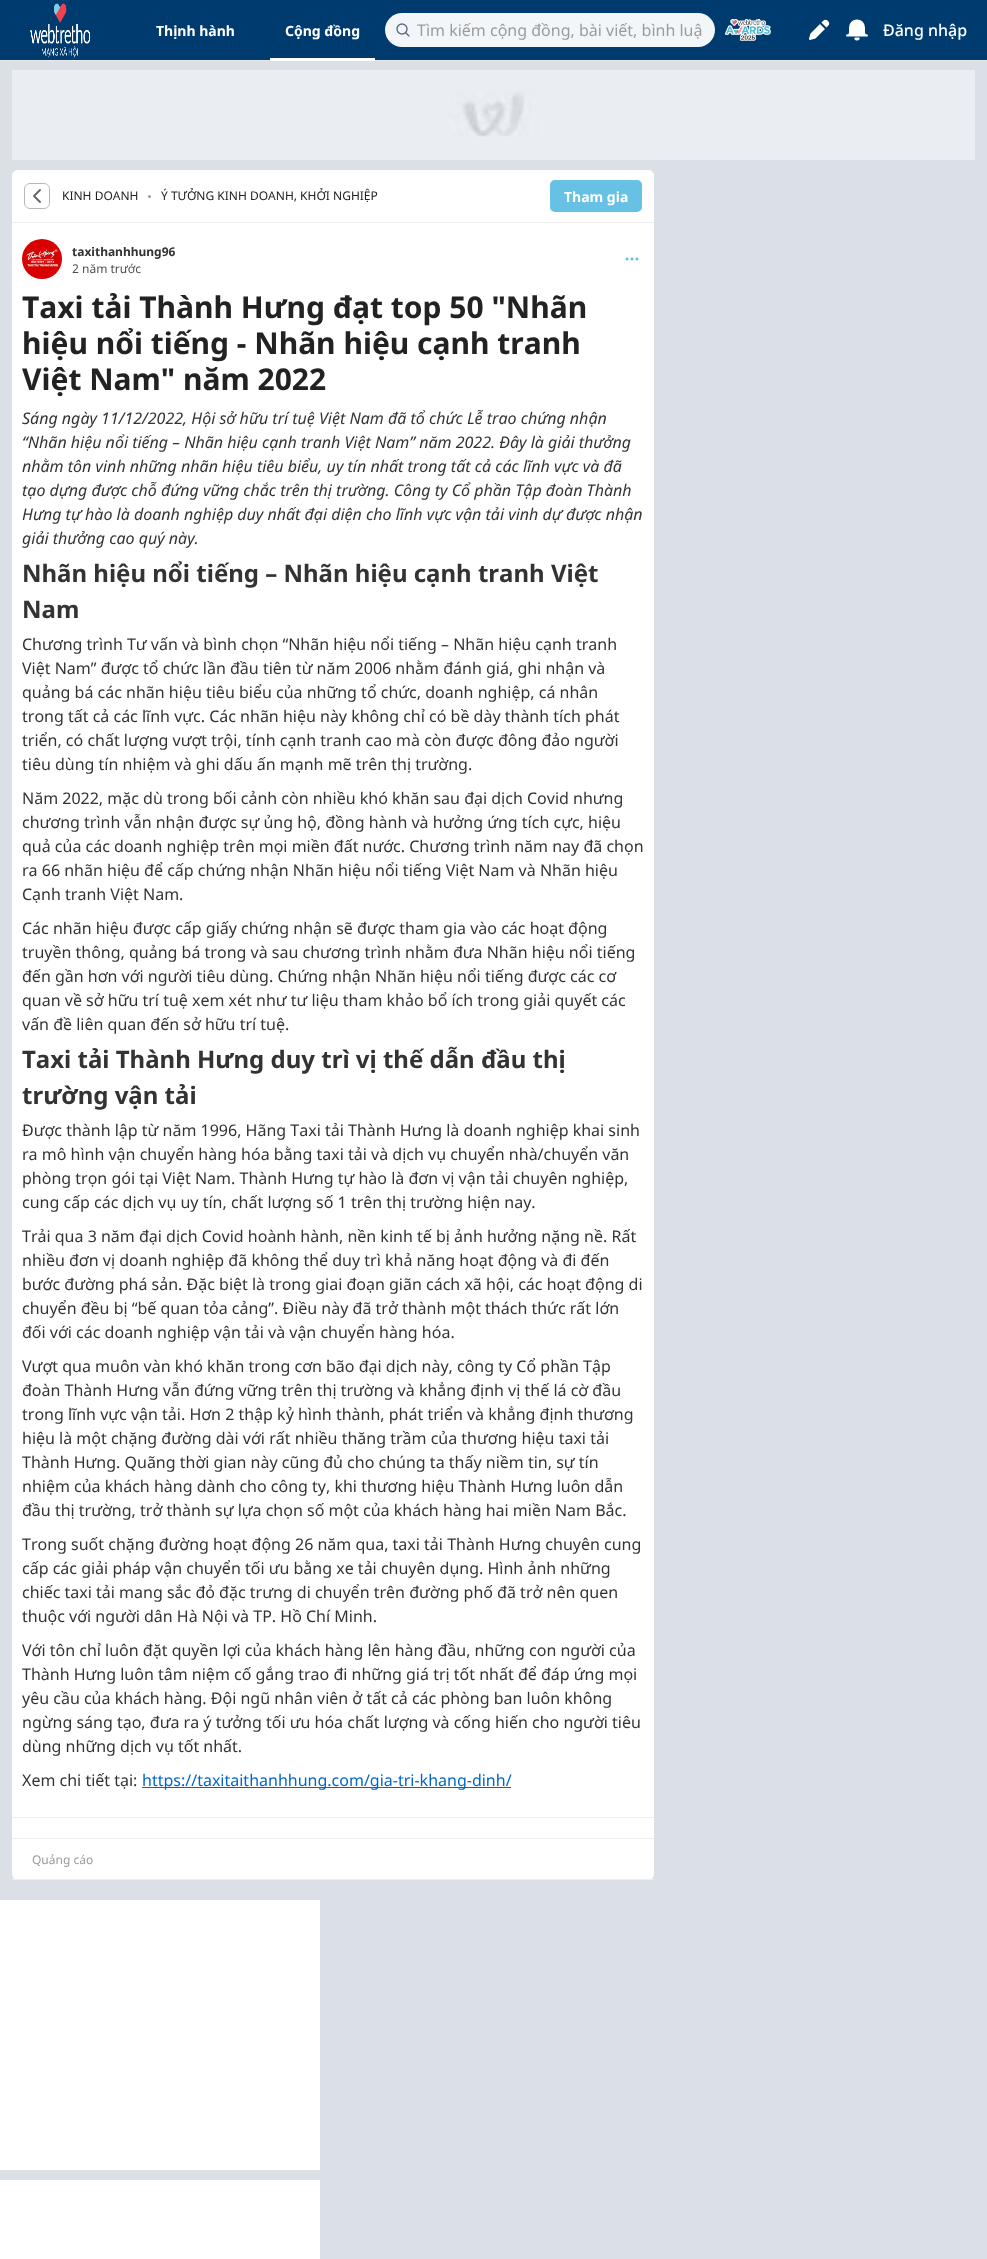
(async () => {
const canvas = document.querySelector("canvas")
canvas.width = 987
canvas.height = 2259
const c = canvas.getContext("2d")
c.miterLimit = 4
c.fontKerning = "none"
function T(s,x,y){c.fillText(s,x,y)}
function R(x,y,w,h){c.fillRect(x,y,w,h)}
function Q(x,y,w,h,r){c.beginPath();c.roundRect(x,y,w,h,r);c.fill()}
async function I(src,x,y,w,h){const img=new Image();img.src=src;await img.decode();c.drawImage(img,x,y,w,h)}
c.fillStyle="#dae0e6"
R(0,0,987,2259)
c.fillStyle="#003b70"
R(0,0,987,60)
await I("1.png",30,3,61,55)
c.font="bold 14px Noto Sans"
c.fillStyle="#fff"
T("Thịnh hành",156,36)
T("Cộng đồng",285,36)
c.fillStyle="#e8e8e8"
R(0,60,987,1)
c.fillStyle="#fff"
R(270,58,105,3)
c.fillStyle="#f3f6f9"
Q(385,13,330,34,17)
await I("2.png",396,23,14,14)
c.font="16px Noto Sans"
c.fillStyle="#9b9b9b"
T("Tìm kiếm cộng đồng, bài viết, bình luậ",417,36)
await I("3.png",725,19,46,22)
await I("4.png",809,19,21,21)
await I("5.png",846,19,22,22)
c.font="500 16px Noto Sans"
c.fillStyle="#fff"
T("Đăng nhập",883,36)
await I("6.png",12,70,963,90)
Q(12,170,642,1710,6)
c.beginPath()
c.roundRect(12,170,642,52,[6,6,0,0])
c.fill()
c.fillStyle="#eee"
R(12,222,642,1)
c.beginPath()
c.roundRect(24.5,183.5,25,25,5.5)
c.strokeStyle="#b6b8ba"
c.stroke()
await I("7.png",33,189,8,14)
c.font="12px Noto Sans"
c.fillStyle="#222"
T("KINH DOANH",62,200)
c.fillStyle="#9b9b9b"
c.beginPath()
c.arc(149.5,196.5,1.5,0,7)
c.fill()
c.fillStyle="#222"
T("Ý TƯỞNG KINH DOANH, KHỞI NGHIỆP",161,200)
c.fillStyle="#67c1e4"
Q(550,180,92,32,5)
c.font="bold 14px Noto Sans"
c.fillStyle="#fff"
T("Tham gia",564,202)
await I("8.png",22,239,40,40)
c.font="bold 12px Noto Sans"
c.fillStyle="#333"
T("taxithanhhung96",72,256)
c.font="12px Noto Sans"
c.fillStyle="#4f4f4f"
T("2 năm trước",72,273)
await I("9.png",625,257,14,4)
c.font="bold 30px Noto Sans"
c.fillStyle="#222"
T("Taxi tải Thành Hưng đạt top 50 \"Nhãn",22,318)
T("hiệu nổi tiếng - Nhãn hiệu cạnh tranh",22,354)
T("Việt Nam\" năm 2022",22,390)
c.font="italic 16px Noto Sans"
c.fillStyle="#333"
T("Sáng ngày 11/12/2022, Hội sở hữu trí tuệ Việt Nam đã tổ chức Lễ trao chứng nhận",22,424)
T("“Nhãn hiệu nổi tiếng – Nhãn hiệu cạnh tranh Việt Nam” năm 2022. Đây là giải thưởng",22,448)
T("nhằm tôn vinh những nhãn hiệu tiêu biểu, uy tín nhất trong tất cả các lĩnh vực và đã",22,472)
T("tạo dựng được chỗ đứng vững chắc trên thị trường. Công ty Cổ phần Tập đoàn Thành",22,496)
T("Hưng tự hào là doanh nghiệp duy nhất đại diện cho lĩnh vực vận tải vinh dự được nhận",22,520)
T("giải thưởng cao quý này.",22,544)
c.font="bold 24px Noto Sans"
T("Nhãn hiệu nổi tiếng – Nhãn hiệu cạnh tranh Việt",22,582)
T("Nam",22,618)
c.font="16px Noto Sans"
T("Chương trình Tư vấn và bình chọn “Nhãn hiệu nổi tiếng – Nhãn hiệu cạnh tranh",22,650)
T("Việt Nam” được tổ chức lần đầu tiên từ năm 2006 nhằm đánh giá, ghi nhận và",22,674)
T("quảng bá các nhãn hiệu tiêu biểu của những tổ chức, doanh nghiệp, cá nhân",22,698)
T("trong tất cả các lĩnh vực. Các nhãn hiệu này không chỉ có bề dày thành tích phát",22,722)
T("triển, có chất lượng vượt trội, tính cạnh tranh cao mà còn được đông đảo người",22,746)
T("tiêu dùng tín nhiệm và ghi dấu ấn mạnh mẽ trên thị trường.",22,770)
T("Năm 2022, mặc dù trong bối cảnh còn nhiều khó khăn sau đại dịch Covid nhưng",22,804)
T("chương trình vẫn nhận được sự ủng hộ, đồng hành và hưởng ứng tích cực, hiệu",22,828)
T("quả của các doanh nghiệp trên mọi miền đất nước. Chương trình năm nay đã chọn",22,852)
T("ra 66 nhãn hiệu để cấp chứng nhận Nhãn hiệu nổi tiếng Việt Nam và Nhãn hiệu",22,876)
T("Cạnh tranh Việt Nam.",22,900)
T("Các nhãn hiệu được cấp giấy chứng nhận sẽ được tham gia vào các hoạt động",22,934)
T("truyền thông, quảng bá trong và sau chương trình nhằm đưa Nhãn hiệu nổi tiếng",22,958)
T("đến gần hơn với người tiêu dùng. Chứng nhận Nhãn hiệu nổi tiếng được các cơ",22,982)
T("quan về sở hữu trí tuệ xem xét như tư liệu tham khảo bổ ích trong giải quyết các",22,1006)
T("vấn đề liên quan đến sở hữu trí tuệ.",22,1030)
c.font="bold 24px Noto Sans"
T("Taxi tải Thành Hưng duy trì vị thế dẫn đầu thị",22,1068)
T("trường vận tải",22,1104)
c.font="16px Noto Sans"
T("Được thành lập từ năm 1996, Hãng Taxi tải Thành Hưng là doanh nghiệp khai sinh",22,1136)
T("ra mô hình vận chuyển hàng hóa bằng taxi tải và dịch vụ chuyển nhà/chuyển văn",22,1160)
T("phòng trọn gói tại Việt Nam. Thành Hưng tự hào là đơn vị vận tải chuyên nghiệp,",22,1184)
T("cung cấp các dịch vụ uy tín, chất lượng số 1 trên thị trường hiện nay.",22,1208)
T("Trải qua 3 năm đại dịch Covid hoành hành, nền kinh tế bị ảnh hưởng nặng nề. Rất",22,1242)
T("nhiều đơn vị doanh nghiệp đã không thể duy trì khả năng hoạt động và đi đến",22,1266)
T("bước đường phá sản. Đặc biệt là trong giai đoạn giãn cách xã hội, các hoạt động di",22,1290)
T("chuyển đều bị “bế quan tỏa cảng”. Điều này đã trở thành một thách thức rất lớn",22,1314)
T("đối với các doanh nghiệp vận tải và vận chuyển hàng hóa.",22,1338)
T("Vượt qua muôn vàn khó khăn trong cơn bão đại dịch này, công ty Cổ phần Tập",22,1372)
T("đoàn Thành Hưng vẫn đứng vững trên thị trường và khẳng định vị thế lá cờ đầu",22,1396)
T("trong lĩnh vực vận tải. Hơn 2 thập kỷ hình thành, phát triển và khẳng định thương",22,1420)
T("hiệu là một chặng đường dài với rất nhiều thăng trầm của thương hiệu taxi tải",22,1444)
T("Thành Hưng. Quãng thời gian này cũng đủ cho chúng ta thấy niềm tin, sự tín",22,1468)
T("nhiệm của khách hàng dành cho công ty, khi thương hiệu Thành Hưng luôn dẫn",22,1492)
T("đầu thị trường, trở thành sự lựa chọn số một của khách hàng hai miền Nam Bắc.",22,1516)
T("Trong suốt chặng đường hoạt động 26 năm qua, taxi tải Thành Hưng chuyên cung",22,1550)
T("cấp các giải pháp vận chuyển tối ưu bằng xe tải chuyên dụng. Hình ảnh những",22,1574)
T("chiếc taxi tải mang sắc đỏ đặc trưng di chuyển trên đường phố đã trở nên quen",22,1598)
T("thuộc với người dân Hà Nội và TP. Hồ Chí Minh.",22,1622)
T("Với tôn chỉ luôn đặt quyền lợi của khách hàng lên hàng đầu, những con người của",22,1656)
T("Thành Hưng luôn tâm niệm cố gắng trao đi những giá trị tốt nhất để đáp ứng mọi",22,1680)
T("yêu cầu của khách hàng. Đội ngũ nhân viên ở tất cả các phòng ban luôn không",22,1704)
T("ngừng sáng tạo, đưa ra ý tưởng tối ưu hóa chất lượng và cống hiến cho người tiêu",22,1728)
T("dùng những dịch vụ tốt nhất.",22,1752)
T("Xem chi tiết tại:",22,1786)
c.fillStyle="#06c"
R(142,1787,369,1)
T("https://taxitaithanhhung.com/gia-tri-khang-dinh/",142,1786)
c.fillStyle="#eee"
R(12,1817,642,1)
R(12,1838,642,1)
c.font="12px Noto Sans"
c.fillStyle="#9b9b9b"
T("Quảng cáo",32,1864)
c.fillStyle="#eee"
R(12,1879,642,1)
c.fillStyle="#fff"
R(0,1900,320,270)
R(0,2180,320,79)
})()
